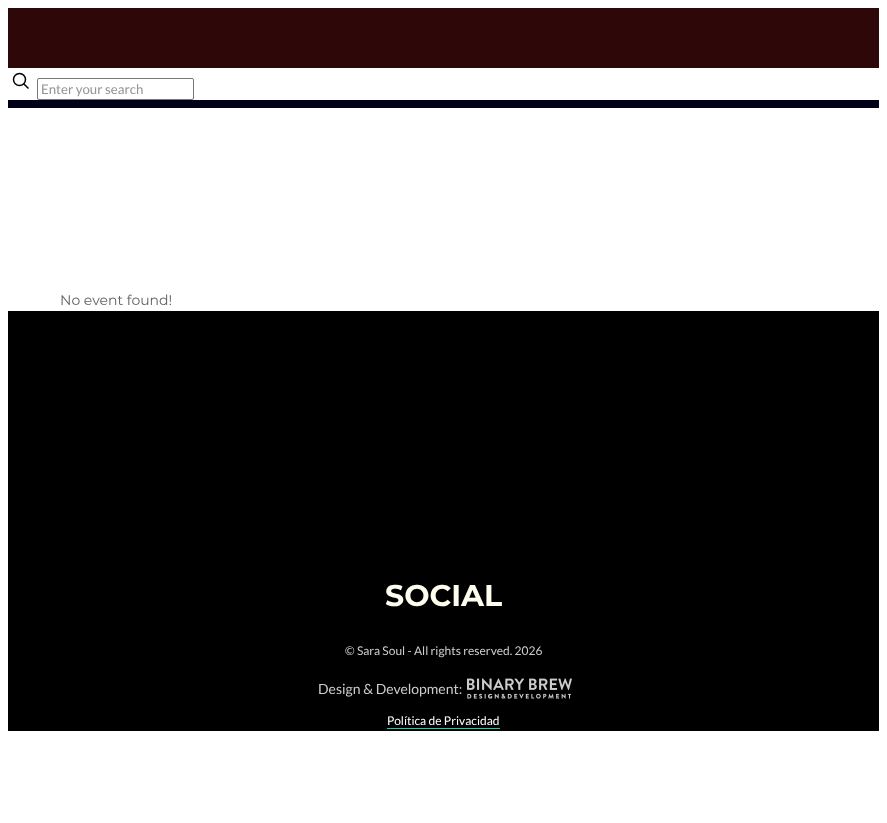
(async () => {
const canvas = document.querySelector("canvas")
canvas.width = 887
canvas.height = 823
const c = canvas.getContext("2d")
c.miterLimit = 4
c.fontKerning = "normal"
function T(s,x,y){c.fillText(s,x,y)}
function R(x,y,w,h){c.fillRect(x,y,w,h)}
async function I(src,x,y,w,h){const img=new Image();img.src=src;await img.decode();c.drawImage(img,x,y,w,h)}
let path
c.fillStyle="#fff"
R(0,0,887,823)
c.fillStyle="#000119"
R(8,100,871,8)
c.fillStyle="#2e0709"
R(8,8,871,60)
c.beginPath()
c.arc(19.5,79.5,6,0,7)
c.strokeStyle="#000"
c.lineWidth=1.5
c.stroke()
path = new Path2D("M23.5 83.5l5 5")
c.stroke(path)
c.beginPath()
c.roundRect(37.5,78.5,156,21,1.5)
c.strokeStyle="#767676"
c.lineWidth=1
c.stroke()
c.font="13.25px Lato"
c.fillStyle="#929292"
T("Enter your search",41,94)
c.font="14px Montserrat"
c.fillStyle="#626262"
T("No event found!",60,305)
c.fillStyle="#000"
R(8,311,871,420)
c.font="bold 30px Montserrat"
c.fillStyle="#fffdee"
T("SOCIAL",385,606)
c.font="12px Lato"
c.fillStyle="#ccc"
T("© Sara Soul - All rights reserved. 2026",345,655)
c.font="14px Lato"
T("Design & Development:",318,694)
await I("1.png",467,678,105,21)
c.font="12px Lato"
c.fillStyle="#fff"
T("Política de Privacidad",387,725)
c.fillStyle="#0fd4b0"
R(387,728,113,1)
})()
